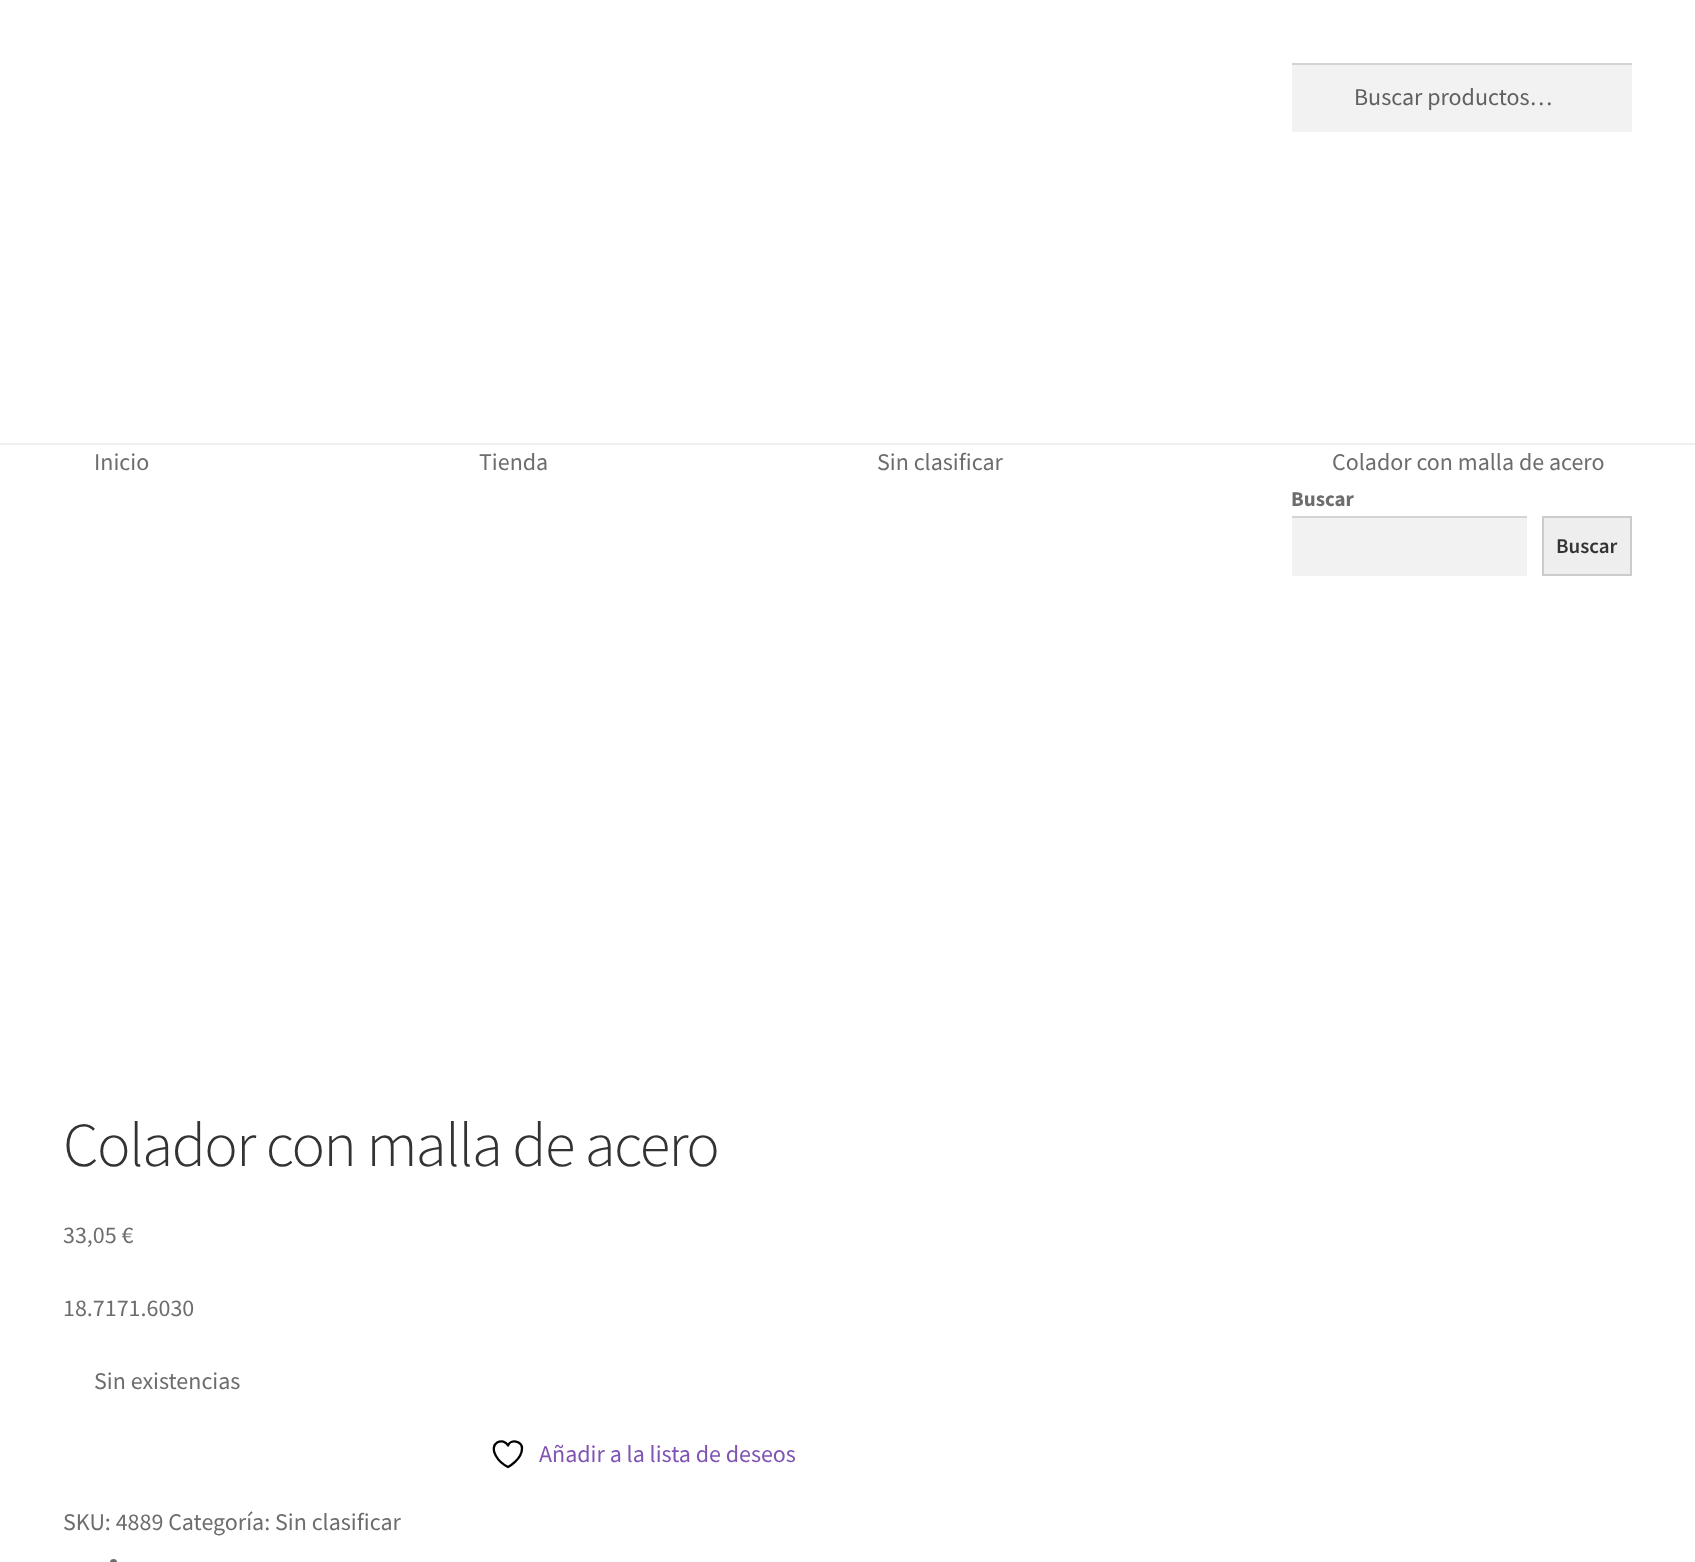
(async () => {
const canvas = document.querySelector("canvas")
canvas.width = 1695
canvas.height = 1562
const c = canvas.getContext("2d")
c.miterLimit = 4
c.fontKerning = "normal"
function T(s,x,y){c.fillText(s,x,y)}
function R(x,y,w,h){c.fillRect(x,y,w,h)}
let path
c.fillStyle="#fff"
R(0,0,1695,1562)
c.fillStyle="#f0f0f0"
R(0,443,1695,2)
c.fillStyle="#f2f2f2"
R(1292,65,340,67)
c.fillStyle="#d4d4d4"
R(1292,63,340,2)
c.font="24px Source Sans Pro"
c.fillStyle="#616161"
T("Buscar productos…",1354,105)
c.fillStyle="#6d6d6d"
T("Inicio",94,470)
T("Tienda",479,470)
T("Sin clasificar",877,470)
T("Colador con malla de acero",1332,470)
c.font="bold 21px Source Sans Pro"
T("Buscar",1291,506)
c.fillStyle="#f2f2f2"
R(1292,518,235,58)
c.fillStyle="#d4d4d4"
R(1292,516,235,2)
c.fillStyle="#eee"
c.beginPath()
c.rect(1543,517,88,58)
c.fill()
c.strokeStyle="#ccc"
c.lineWidth=2
c.stroke()
c.font="600 21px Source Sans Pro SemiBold"
c.fillStyle="#333"
T("Buscar",1556,553)
c.letterSpacing="-1.5px"
c.font="300 62.75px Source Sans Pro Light"
T("Colador con malla de acero",63,1166)
c.letterSpacing="0px"
c.font="24px Source Sans Pro"
c.fillStyle="#6d6d6d"
T("33,05 €",63,1243)
T("18.7171.6030",63,1316)
T("Sin existencias",94,1389)
path = new Path2D("M522 1448.5c0-8-11.5-9.5-14-3c-4-8.5-20-3.5-12 10.5c2.5 4.5 7 8.5 12 11c0 0 14-7.5 14-18.5z")
c.strokeStyle="#000"
c.lineWidth=2.3
c.lineCap="round"
c.lineJoin="round"
c.stroke(path)
c.fillStyle="#7f54b3"
T("Añadir a la lista de deseos",539,1462)
c.fillStyle="#6d6d6d"
T("SKU: 4889 Categoría:",63,1530)
T("Sin clasificar",275,1530)
c.beginPath()
c.arc(113.5,1562.5,3.5,0,7)
c.fill()
})()
